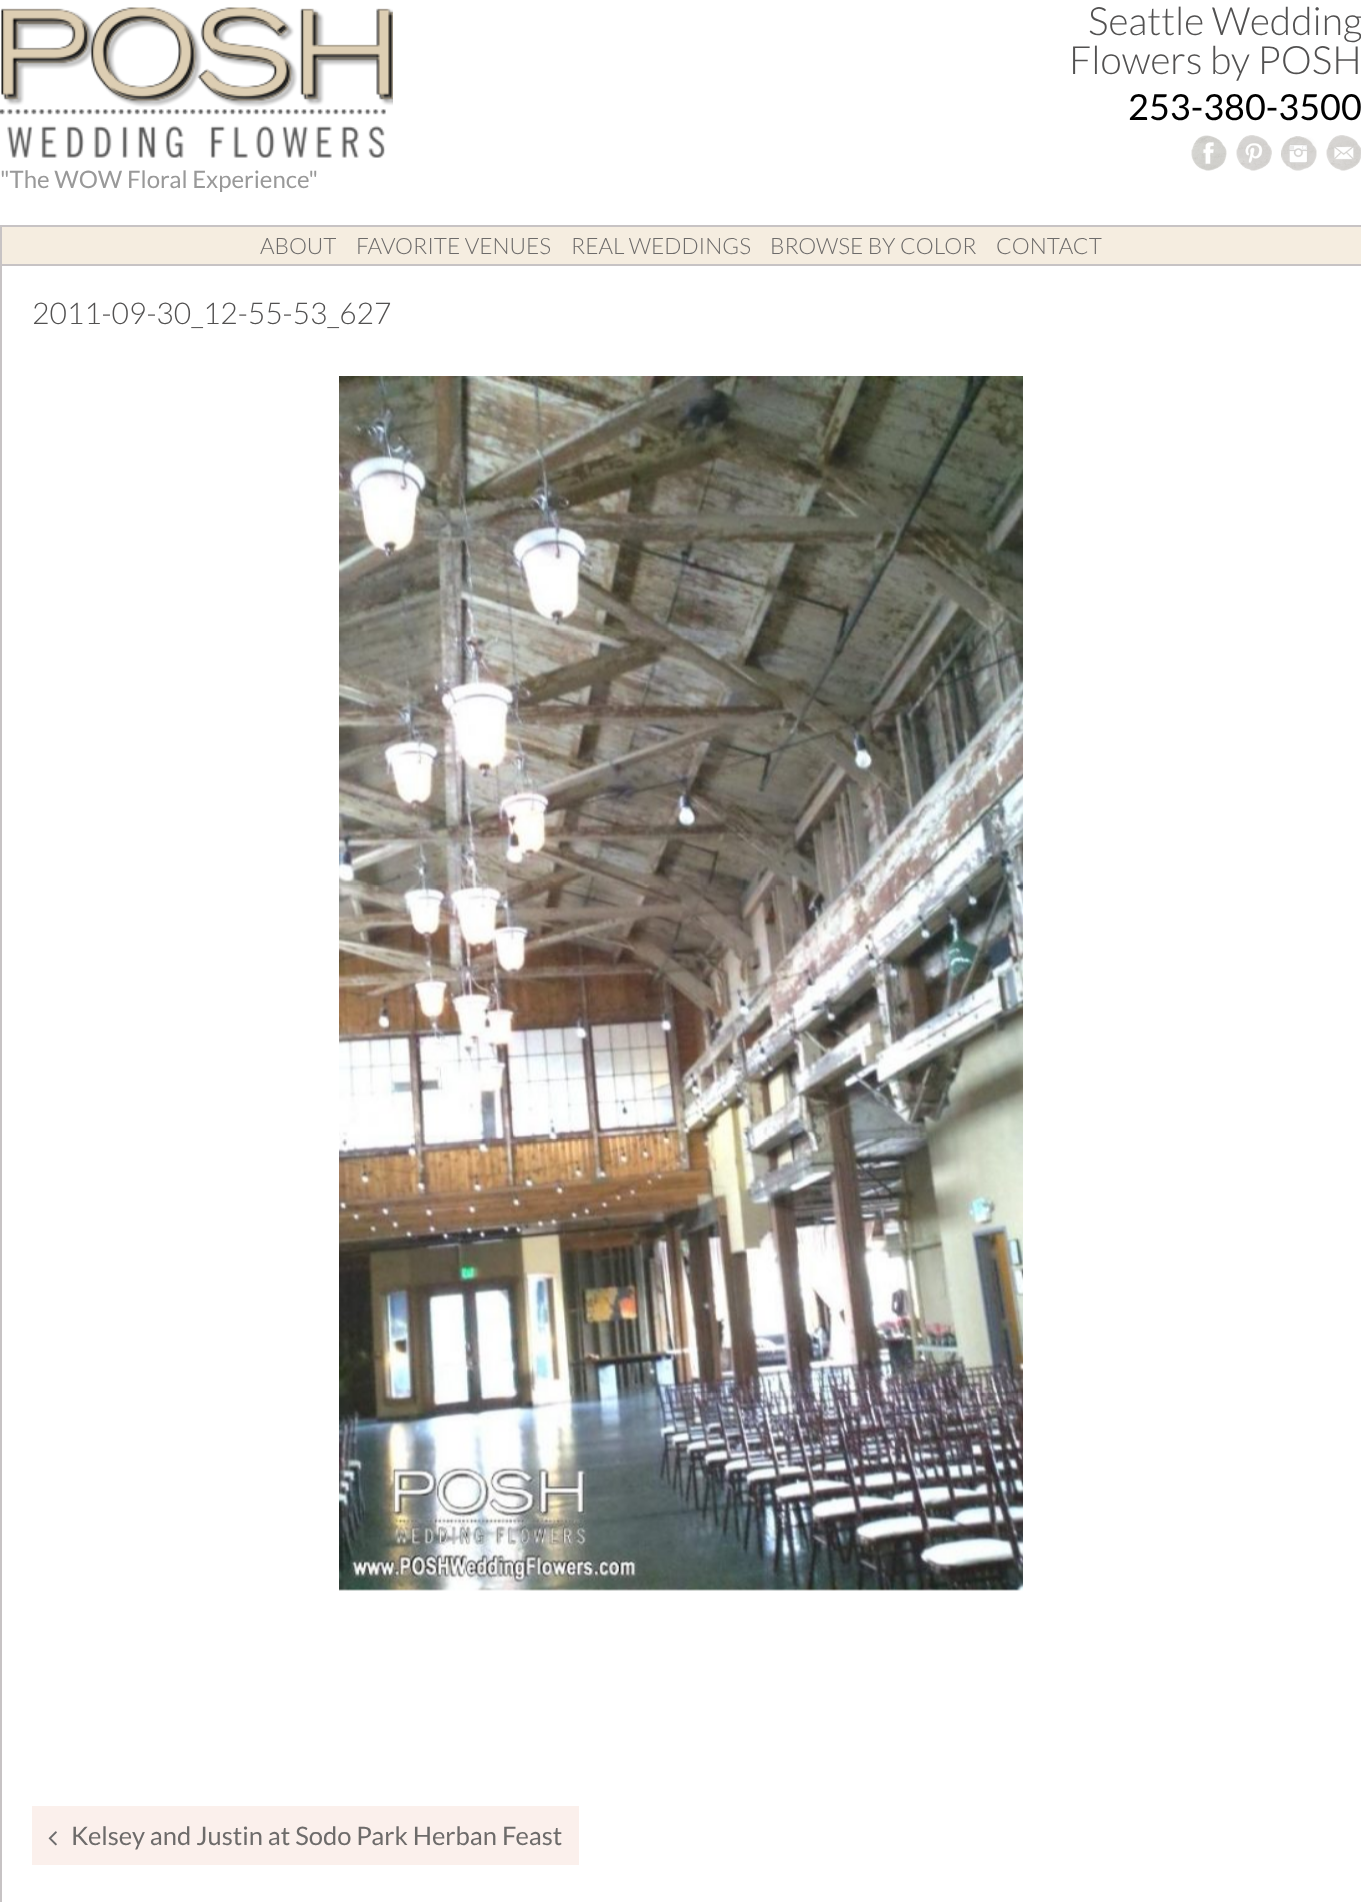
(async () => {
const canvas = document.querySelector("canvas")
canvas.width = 1361
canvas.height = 1902
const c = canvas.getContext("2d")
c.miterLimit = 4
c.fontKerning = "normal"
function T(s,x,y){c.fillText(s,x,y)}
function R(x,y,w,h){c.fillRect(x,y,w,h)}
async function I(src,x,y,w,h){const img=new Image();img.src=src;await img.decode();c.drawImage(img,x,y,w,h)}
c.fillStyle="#fff"
R(0,0,1361,1902)
c.font="300 39px Lato"
c.fillStyle="#525151"
T("Seattle Wedding",1088,35)
T("Flowers by POSH",1069,74)
c.font="36px Lato"
c.fillStyle="#000"
T("253-380-3500",1128,120)
await I("1.png",1191,135,36,36)
await I("2.png",1236,135,36,36)
await I("3.png",1281,136,36,35)
await I("4.png",1326,135,35,36)
await I("5.png",0,7,393,151)
c.font="24px Lato"
c.fillStyle="#999"
T("\"The WOW Floral Experience\"",0,188)
c.fillStyle="#c7c3c4"
R(0,225,2,1677)
c.fillStyle="#f5ede0"
R(2,227,1359,37)
c.fillStyle="#c7c3c4"
R(2,225,1359,2)
R(2,264,1359,2)
c.font="300 22.5px Lato"
c.fillStyle="#6d6b6a"
T("ABOUT",260,254)
T("FAVORITE VENUES",356,254)
T("REAL WEDDINGS",571,254)
T("BROWSE BY COLOR",770,254)
T("CONTACT",996,254)
c.font="300 30px Lato"
c.fillStyle="#525151"
T("2011-09-30_12-55-53_627",32,324)
await I("6.png",339,376,684,1215)
c.fillStyle="#fbf0ec"
R(32,1806,547,59)
await I("7.png",48,1831,9,15)
c.font="25.5px Lato"
c.fillStyle="#6d6b6a"
T("Kelsey and Justin at Sodo Park Herban Feast",71,1845)
})()
